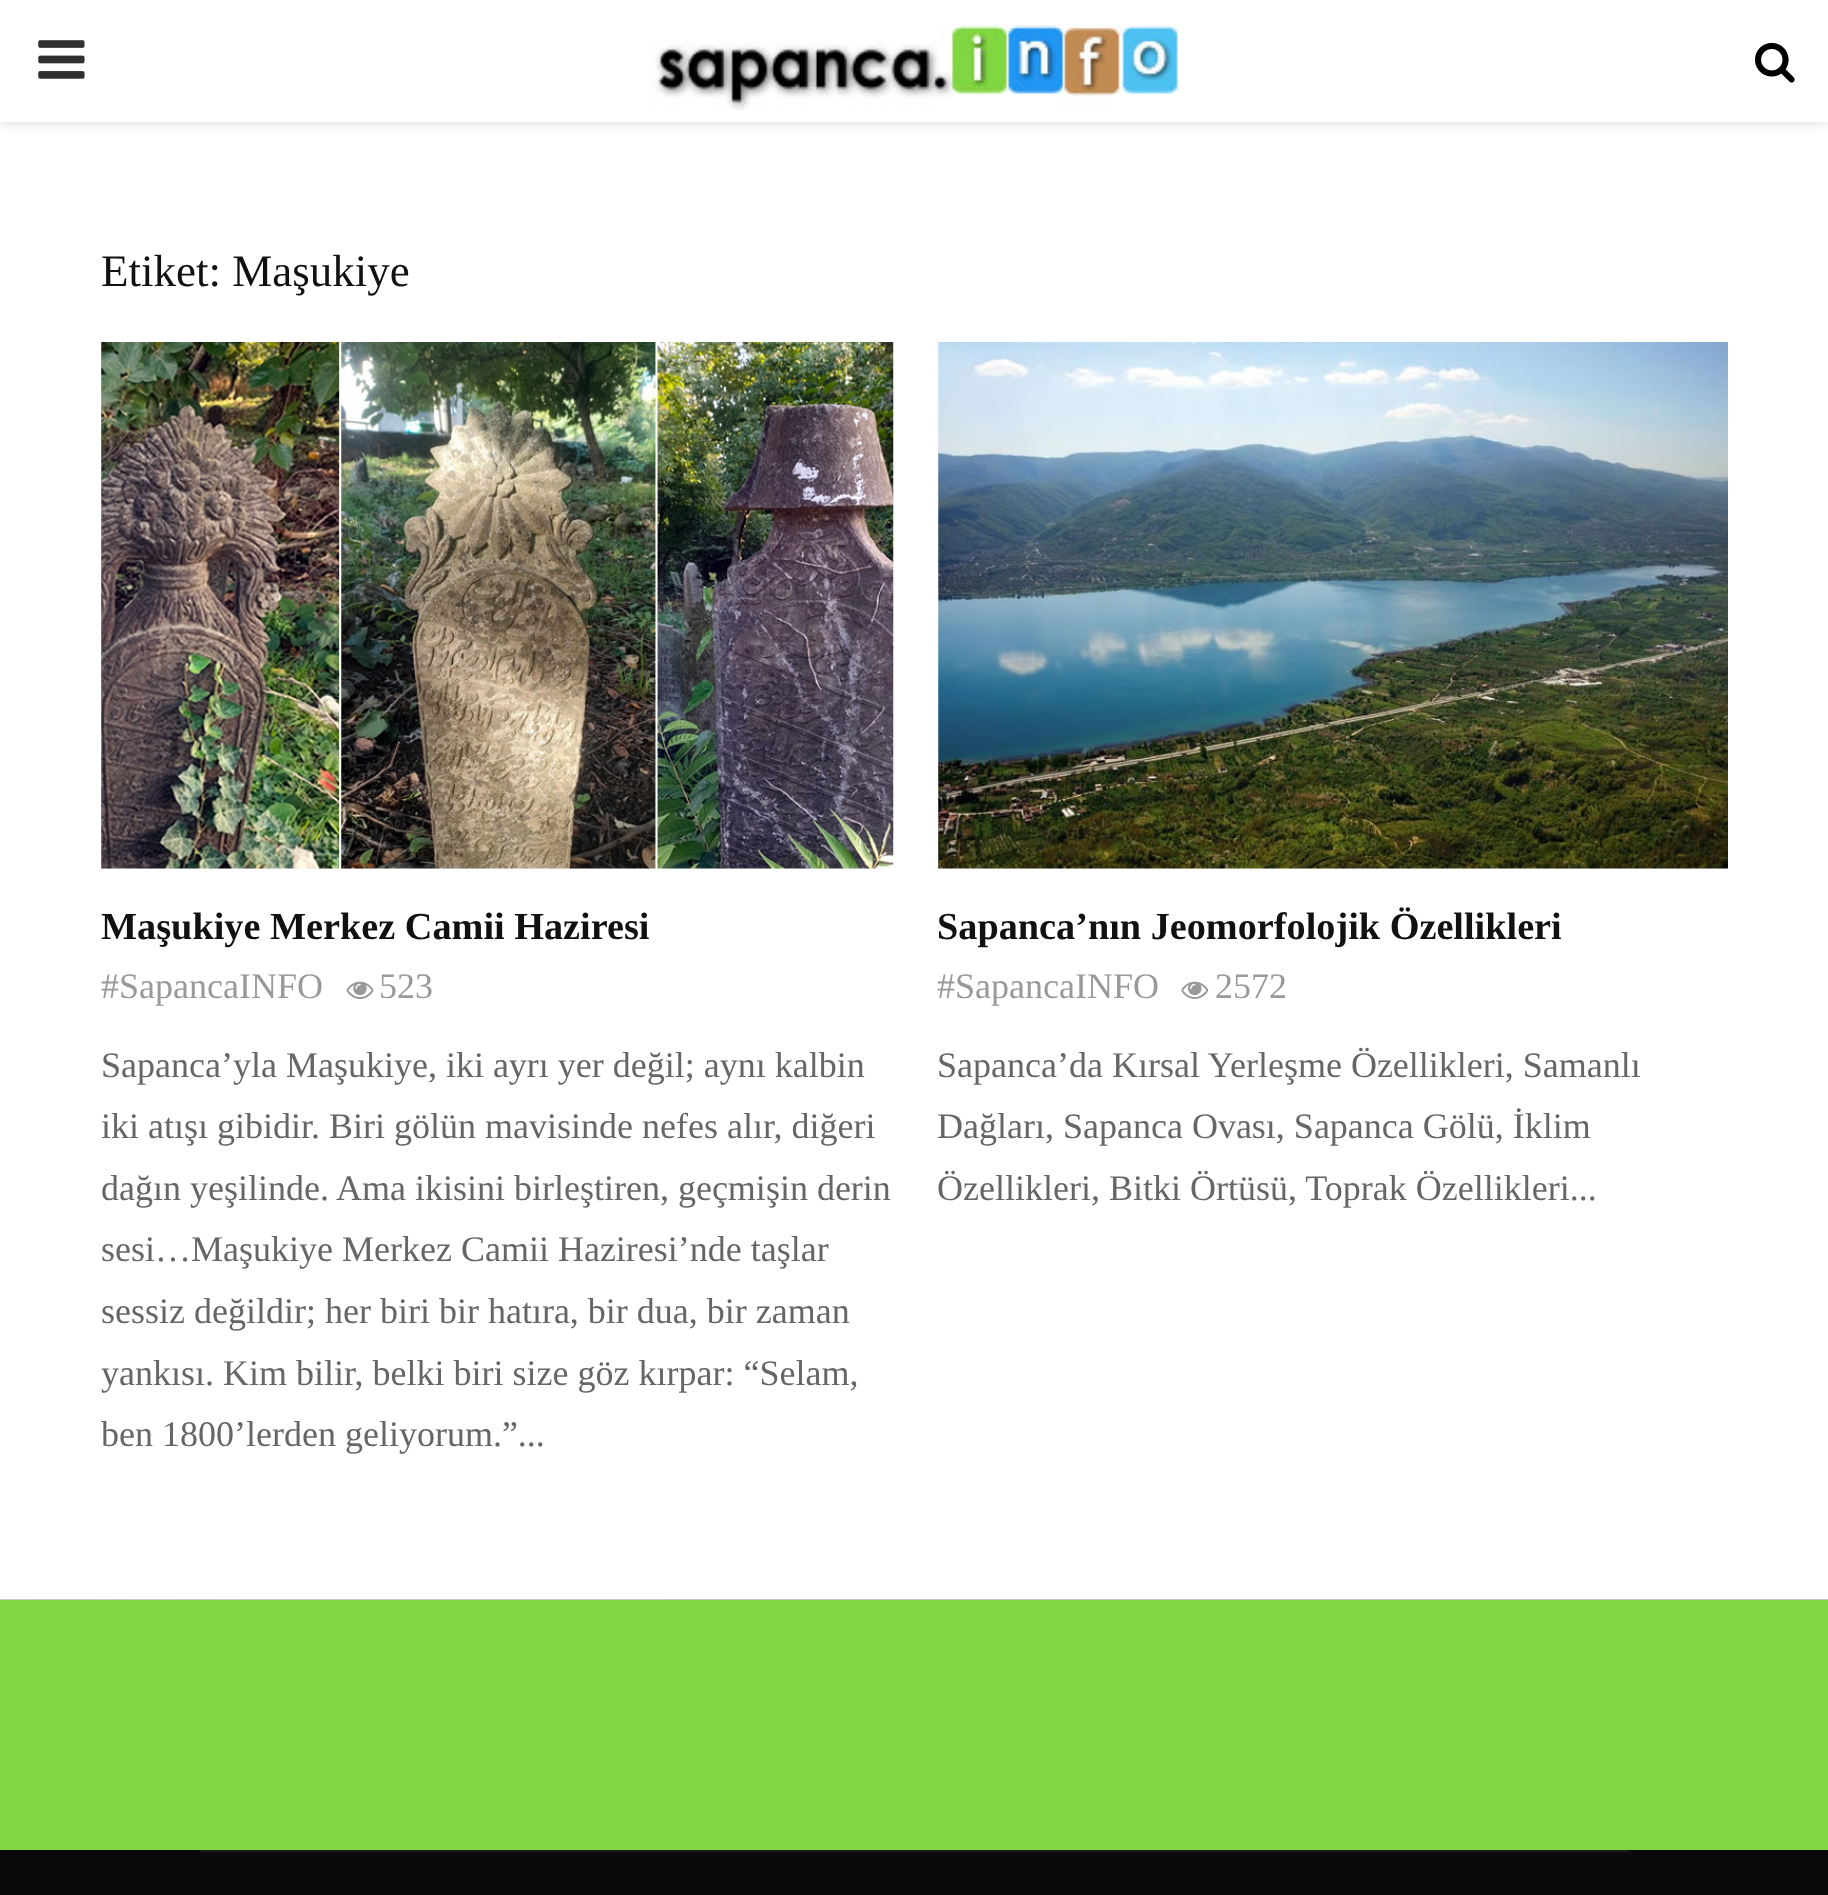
(async () => {
const canvas = document.querySelector("canvas")
canvas.width = 1828
canvas.height = 1895
const c = canvas.getContext("2d")
c.miterLimit = 4
c.fontKerning = "normal"
function T(s,x,y){c.fillText(s,x,y)}
function R(x,y,w,h){c.fillRect(x,y,w,h)}
async function I(src,x,y,w,h){const img=new Image();img.src=src;await img.decode();c.drawImage(img,x,y,w,h)}
c.fillStyle="#fff"
R(0,0,1828,1895)
c.fillStyle="#bebebe75"
c.filter="blur(5.5px)"
c.beginPath()
c.rect(0,2,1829,122)
c.fill()
c.filter="none"
c.fillStyle="#fff"
R(0,0,1828,122)
await I("1.png",38,40,47,39)
await I("2.png",650,24,531,87)
await I("3.png",1755,42,40,41)
c.font="45px Liberation Serif"
c.fillStyle="#111"
T("Etiket: Maşukiye",101,286)
c.fillStyle="#f5f5f5"
R(101,342,792,527)
await I("4.png",101,342,793,527)
c.font="bold 38.25px Liberation Serif"
c.fillStyle="#111"
T("Maşukiye Merkez Camii Haziresi",101,939)
c.font="36px Liberation Serif"
c.fillStyle="#999"
T("#SapancaINFO",101,998)
await I("5.png",346,981,28,18)
T("523",379,998)
c.fillStyle="#666"
T("Sapanca’yla Maşukiye, iki ayrı yer değil; aynı kalbin",101,1077)
T("iki atışı gibidir. Biri gölün mavisinde nefes alır, diğeri",101,1138)
T("dağın yeşilinde. Ama ikisini birleştiren, geçmişin derin",101,1200)
T("sesi…Maşukiye Merkez Camii Haziresi’nde taşlar",101,1261)
T("sessiz değildir; her biri bir hatıra, bir dua, bir zaman",101,1323)
T("yankısı. Kim bilir, belki biri size göz kırpar: “Selam,",101,1385)
T("ben 1800’lerden geliyorum.”...",101,1446)
c.fillStyle="#f5f5f5"
R(938,342,790,527)
await I("6.png",938,342,790,527)
c.font="bold 38.25px Liberation Serif"
c.fillStyle="#111"
T("Sapanca’nın Jeomorfolojik Özellikleri",937,939)
c.font="36px Liberation Serif"
c.fillStyle="#999"
T("#SapancaINFO",937,998)
await I("7.png",1181,981,28,18)
T("2572",1215,998)
c.fillStyle="#666"
T("Sapanca’da Kırsal Yerleşme Özellikleri, Samanlı",937,1077)
T("Dağları, Sapanca Ovası, Sapanca Gölü, İklim",937,1138)
T("Özellikleri, Bitki Örtüsü, Toprak Özellikleri...",937,1200)
await I("8.png",0,1599,1828,1)
c.fillStyle="#81d742"
R(0,1600,1828,250)
c.fillStyle="#0a0a0a"
R(0,1850,1828,45)
c.fillStyle="#1c1c1c"
R(200,1850,1429,2)
})()
